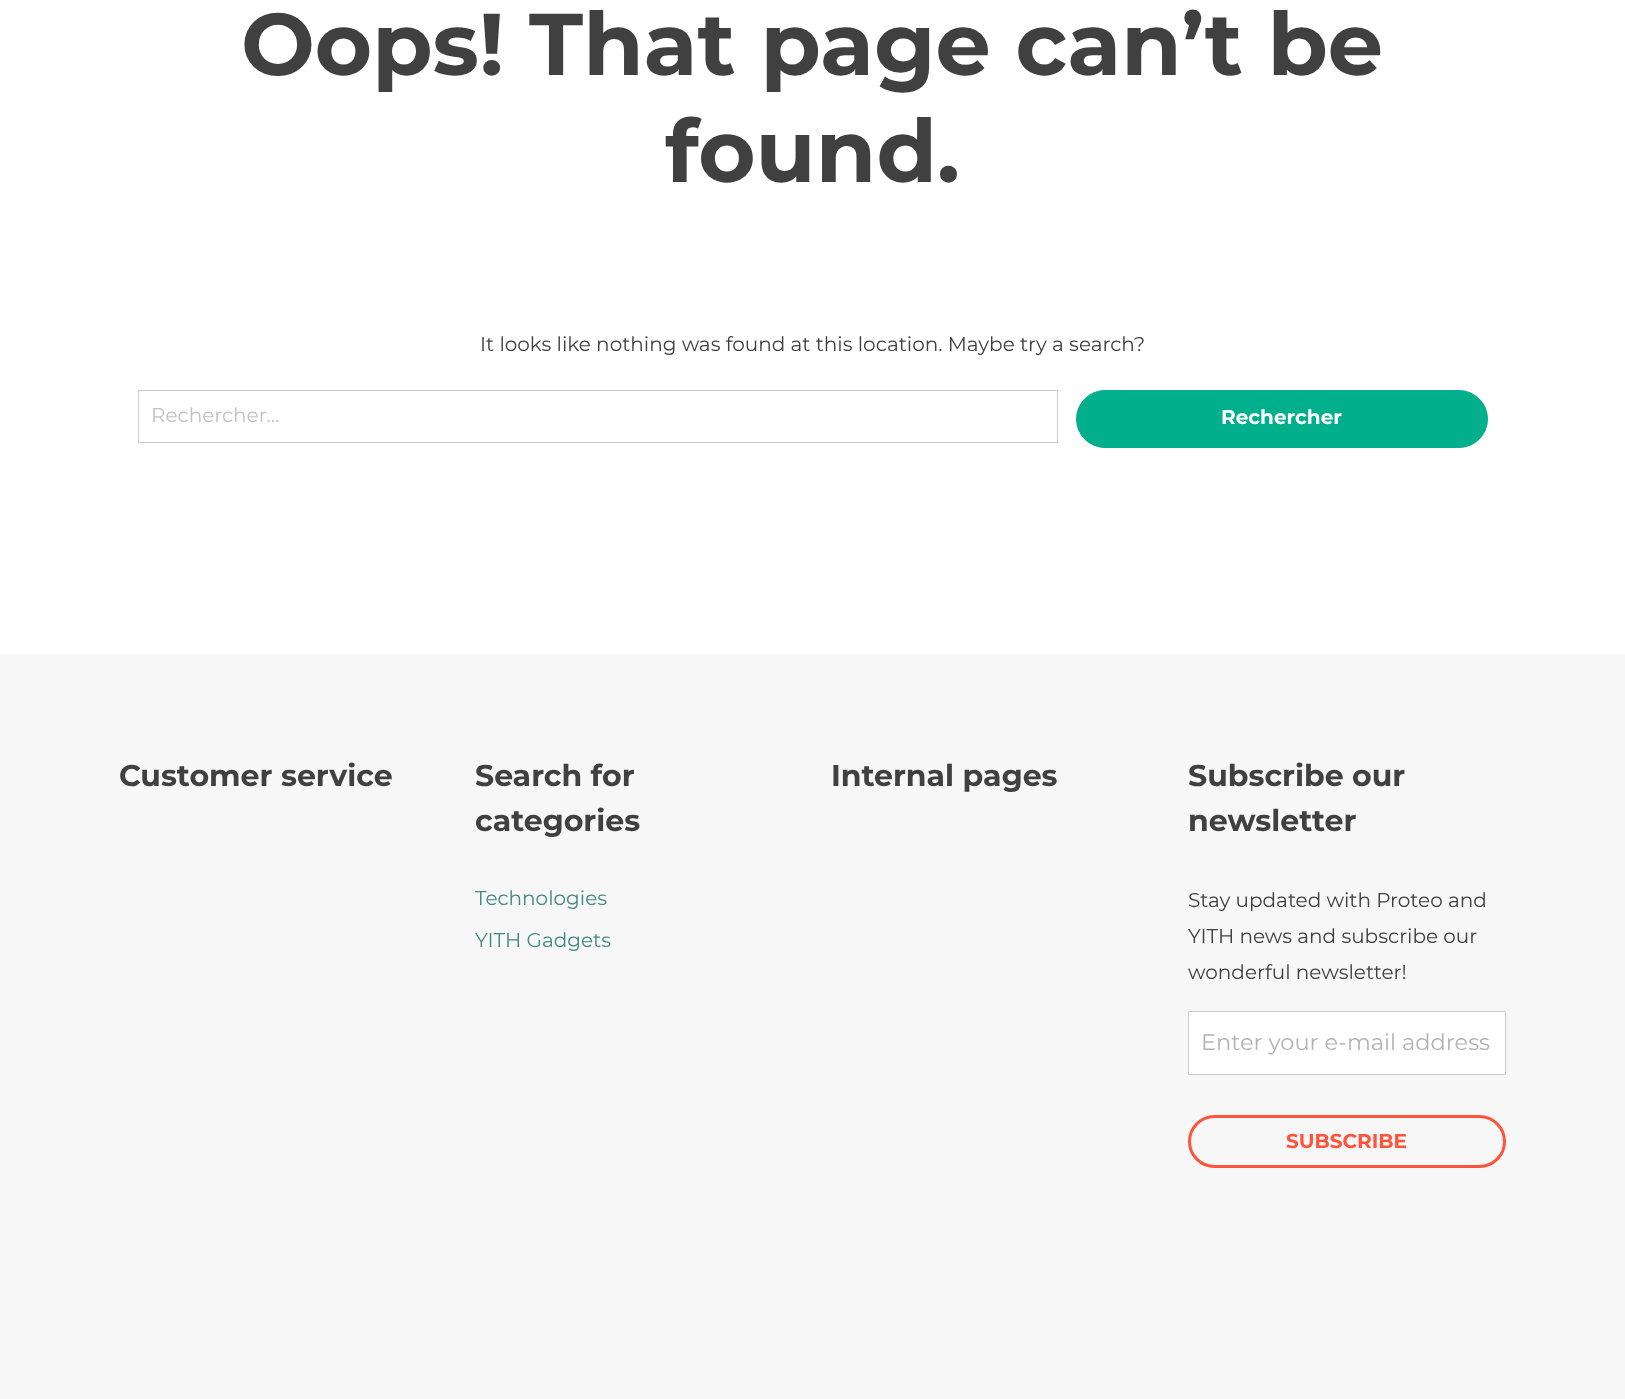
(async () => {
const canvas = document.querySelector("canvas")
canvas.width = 1625
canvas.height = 1399
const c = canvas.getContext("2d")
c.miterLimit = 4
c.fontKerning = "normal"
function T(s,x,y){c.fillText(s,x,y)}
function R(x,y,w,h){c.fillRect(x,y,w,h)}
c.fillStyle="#fff"
R(0,0,1625,1399)
c.font="bold 87.5px Montserrat"
c.fillStyle="#404040"
T("Oops! That page can’t be",241,75)
T("found.",665,182)
c.font="20px Montserrat"
T("It looks like nothing was found at this location. Maybe try a search?",480,351)
c.strokeStyle="#ccc"
c.strokeRect(138.5,390.5,919,52)
c.fillStyle="#c2c2c2"
T("Rechercher…",151,422)
c.fillStyle="#01af8d"
c.beginPath()
c.roundRect(1076.5,390.5,411,57,28.5)
c.fill()
c.strokeStyle="#01af8d"
c.stroke()
c.font="bold 20px Montserrat"
c.fillStyle="#fff"
T("Rechercher",1221,424)
c.fillStyle="#f7f7f7"
R(0,654,1625,745)
c.font="bold 30px Montserrat"
c.fillStyle="#404040"
T("Customer service",119,786)
T("Search for",475,786)
T("categories",475,831)
c.font="20px Montserrat"
c.fillStyle="#448a85"
T("Technologies",475,905)
T("YITH Gadgets",475,947)
c.font="bold 30px Montserrat"
c.fillStyle="#404040"
T("Internal pages",831,786)
T("Subscribe our",1188,786)
T("newsletter",1188,831)
c.font="20px Montserrat"
T("Stay updated with Proteo and",1188,907)
T("YITH news and subscribe our",1188,943)
T("wonderful newsletter!",1188,979)
c.fillStyle="#fff"
c.beginPath()
c.rect(1188.5,1011.5,317,63)
c.fill()
c.strokeStyle="#ccc"
c.stroke()
c.font="22.5px Montserrat"
c.fillStyle="#b3b3b3"
T("Enter your e-mail address",1201,1050)
c.beginPath()
c.roundRect(1189.5,1116.5,315,50,25)
c.strokeStyle="#ff543a"
c.lineWidth=3
c.stroke()
c.font="bold 20px Montserrat"
c.fillStyle="#ff543a"
T("SUBSCRIBE",1286,1148)
})()
